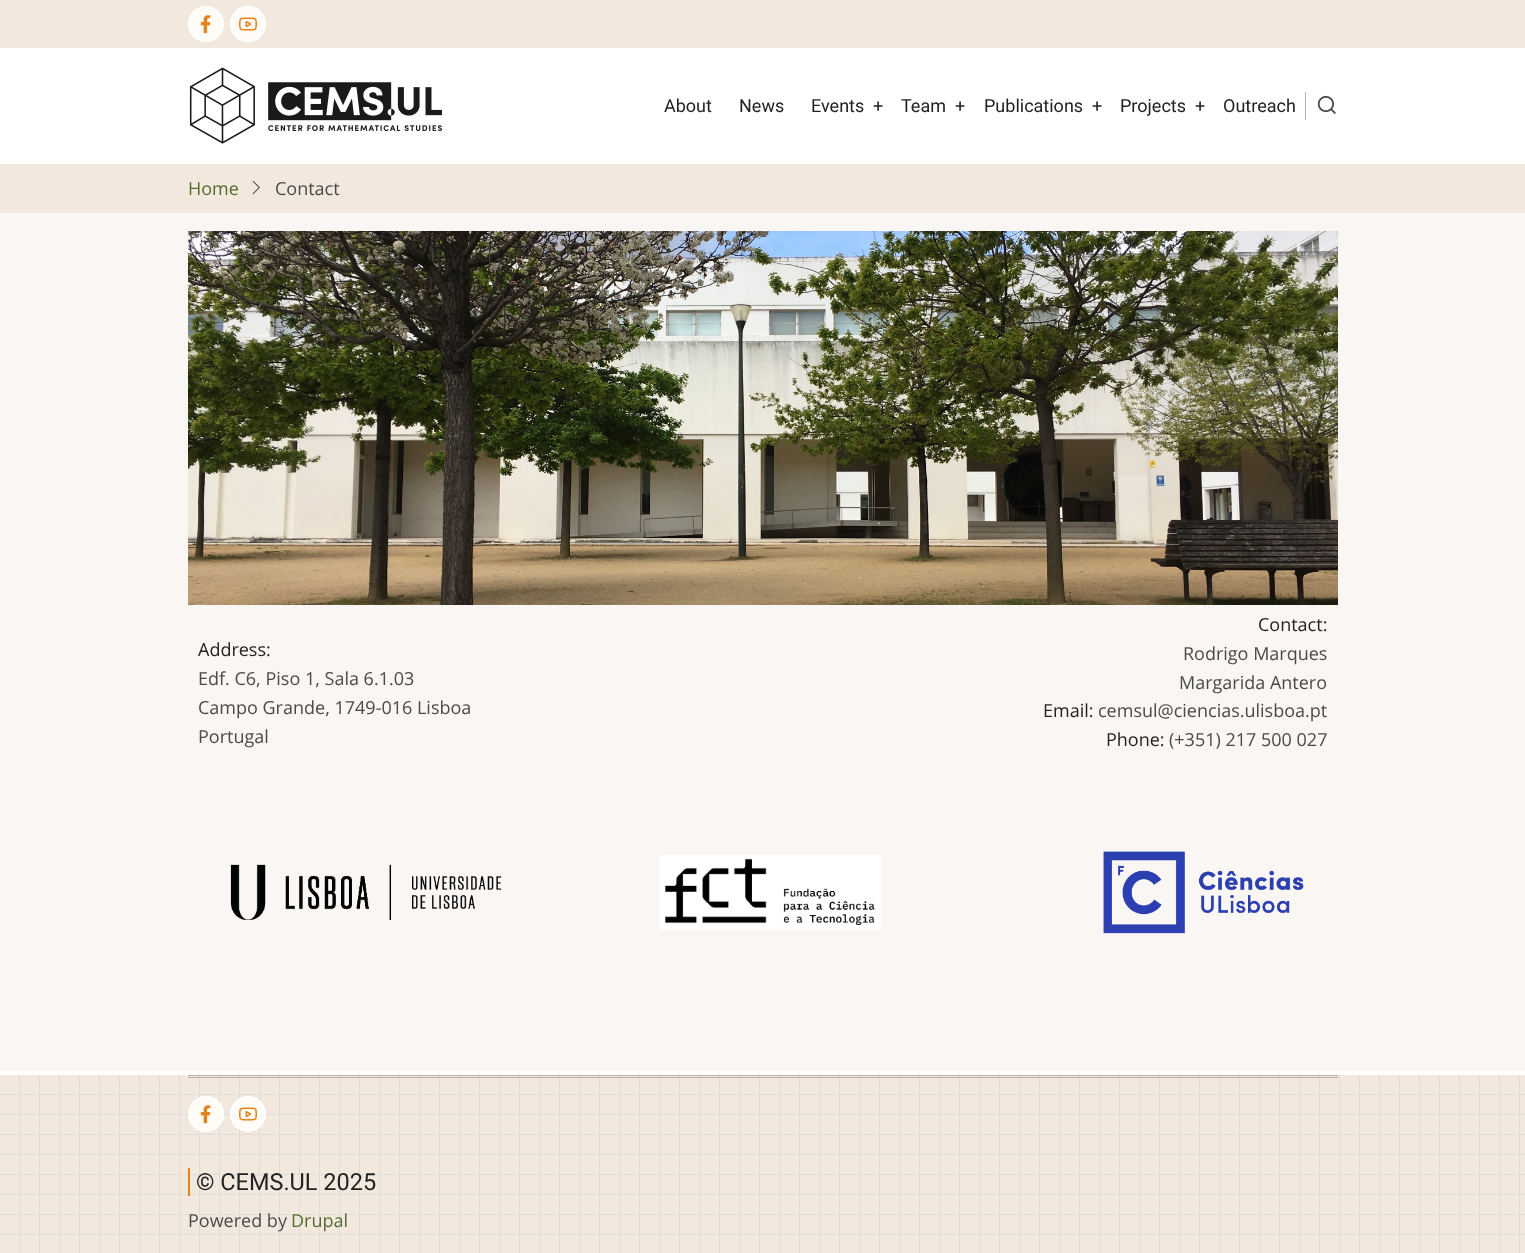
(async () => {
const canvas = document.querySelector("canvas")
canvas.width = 1525
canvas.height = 1253
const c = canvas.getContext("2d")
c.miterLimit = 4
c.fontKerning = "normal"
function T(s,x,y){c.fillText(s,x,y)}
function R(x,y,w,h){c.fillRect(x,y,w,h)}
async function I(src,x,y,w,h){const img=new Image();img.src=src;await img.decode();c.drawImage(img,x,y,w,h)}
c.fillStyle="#f9f6f3"
R(0,0,1525,1253)
c.fillStyle="#f2e8dd"
R(0,0,1525,48)
c.fillStyle="#fffbf6"
c.beginPath()
c.arc(206,24,17,0,7)
c.fill()
c.strokeStyle="#fff"
c.lineWidth=2
c.stroke()
await I("1.png",200,15,11,19)
c.beginPath()
c.arc(248,24,17,0,7)
c.fill()
c.stroke()
await I("2.png",239,17,18,14)
c.fillStyle="#fff"
R(0,48,1525,116)
await I("3.png",189,67,253,77)
c.font="18px Roboto"
c.fillStyle="#222"
T("About",664,112)
T("News",739,112)
T("Events",811,112)
T("+",873,112)
T("Team",901,112)
T("+",955,112)
T("Publications",984,112)
T("+",1092,112)
T("Projects",1120,112)
T("+",1195,112)
T("Outreach",1223,112)
c.fillStyle="#b4b4b4"
R(1305,92,1,28)
await I("4.png",1317,95,19,19)
c.fillStyle="#f2e8dd"
R(0,164,1525,49)
c.font="18px Open Sans"
c.fillStyle="#556b2f"
T("Home",188,195)
await I("5.png",252,180,8,15)
c.fillStyle="#4a4a4a"
T("Contact",275,195)
await I("6.png",188,231,1150,374)
c.fillStyle="#222"
T("Address:",198,656)
c.fillStyle="#4a4a4a"
T("Edf. C6, Piso 1, Sala 6.1.03",198,685)
T("Campo Grande, 1749-016 Lisboa",198,714)
T("Portugal",198,743)
c.fillStyle="#222"
T("Contact:",1258,631)
c.fillStyle="#4a4a4a"
T("Rodrigo Marques",1183,660)
T("Margarida Antero",1179,689)
c.fillStyle="#222"
T("Email:",1043,717)
c.fillStyle="#4a4a4a"
T("cemsul@ciencias.ulisboa.pt",1098,717)
c.fillStyle="#222"
T("Phone:",1106,746)
c.fillStyle="#4a4a4a"
T("(+351) 217 500 027",1169,746)
await I("7.png",230,864,272,56)
await I("8.png",660,855,221,75)
await I("9.png",1103,851,201,83)
c.fillStyle="#f2e8dd"
R(0,1075,1525,178)
await I("10.png",0,1075,1525,178)
c.fillStyle="#fff"
R(0,1071,1525,4)
c.fillStyle="#bbb0a1"
R(188,1075,1150,1)
R(188,1077,1150,1)
c.fillStyle="#fffbf6"
c.beginPath()
c.arc(206,1114,17,0,7)
c.fill()
c.stroke()
await I("1.png",200,1105,11,19)
c.beginPath()
c.arc(248,1114,17,0,7)
c.fill()
c.stroke()
await I("2.png",239,1107,18,14)
c.fillStyle="#e3831c"
R(188,1168,2,28)
c.font="23.5px Roboto"
c.fillStyle="#222"
T("© CEMS.UL 2025",196,1190)
c.font="18px Open Sans"
c.fillStyle="#4a4a4a"
T("Powered by",188,1227)
c.fillStyle="#556b2f"
T("Drupal",291,1227)
})()
